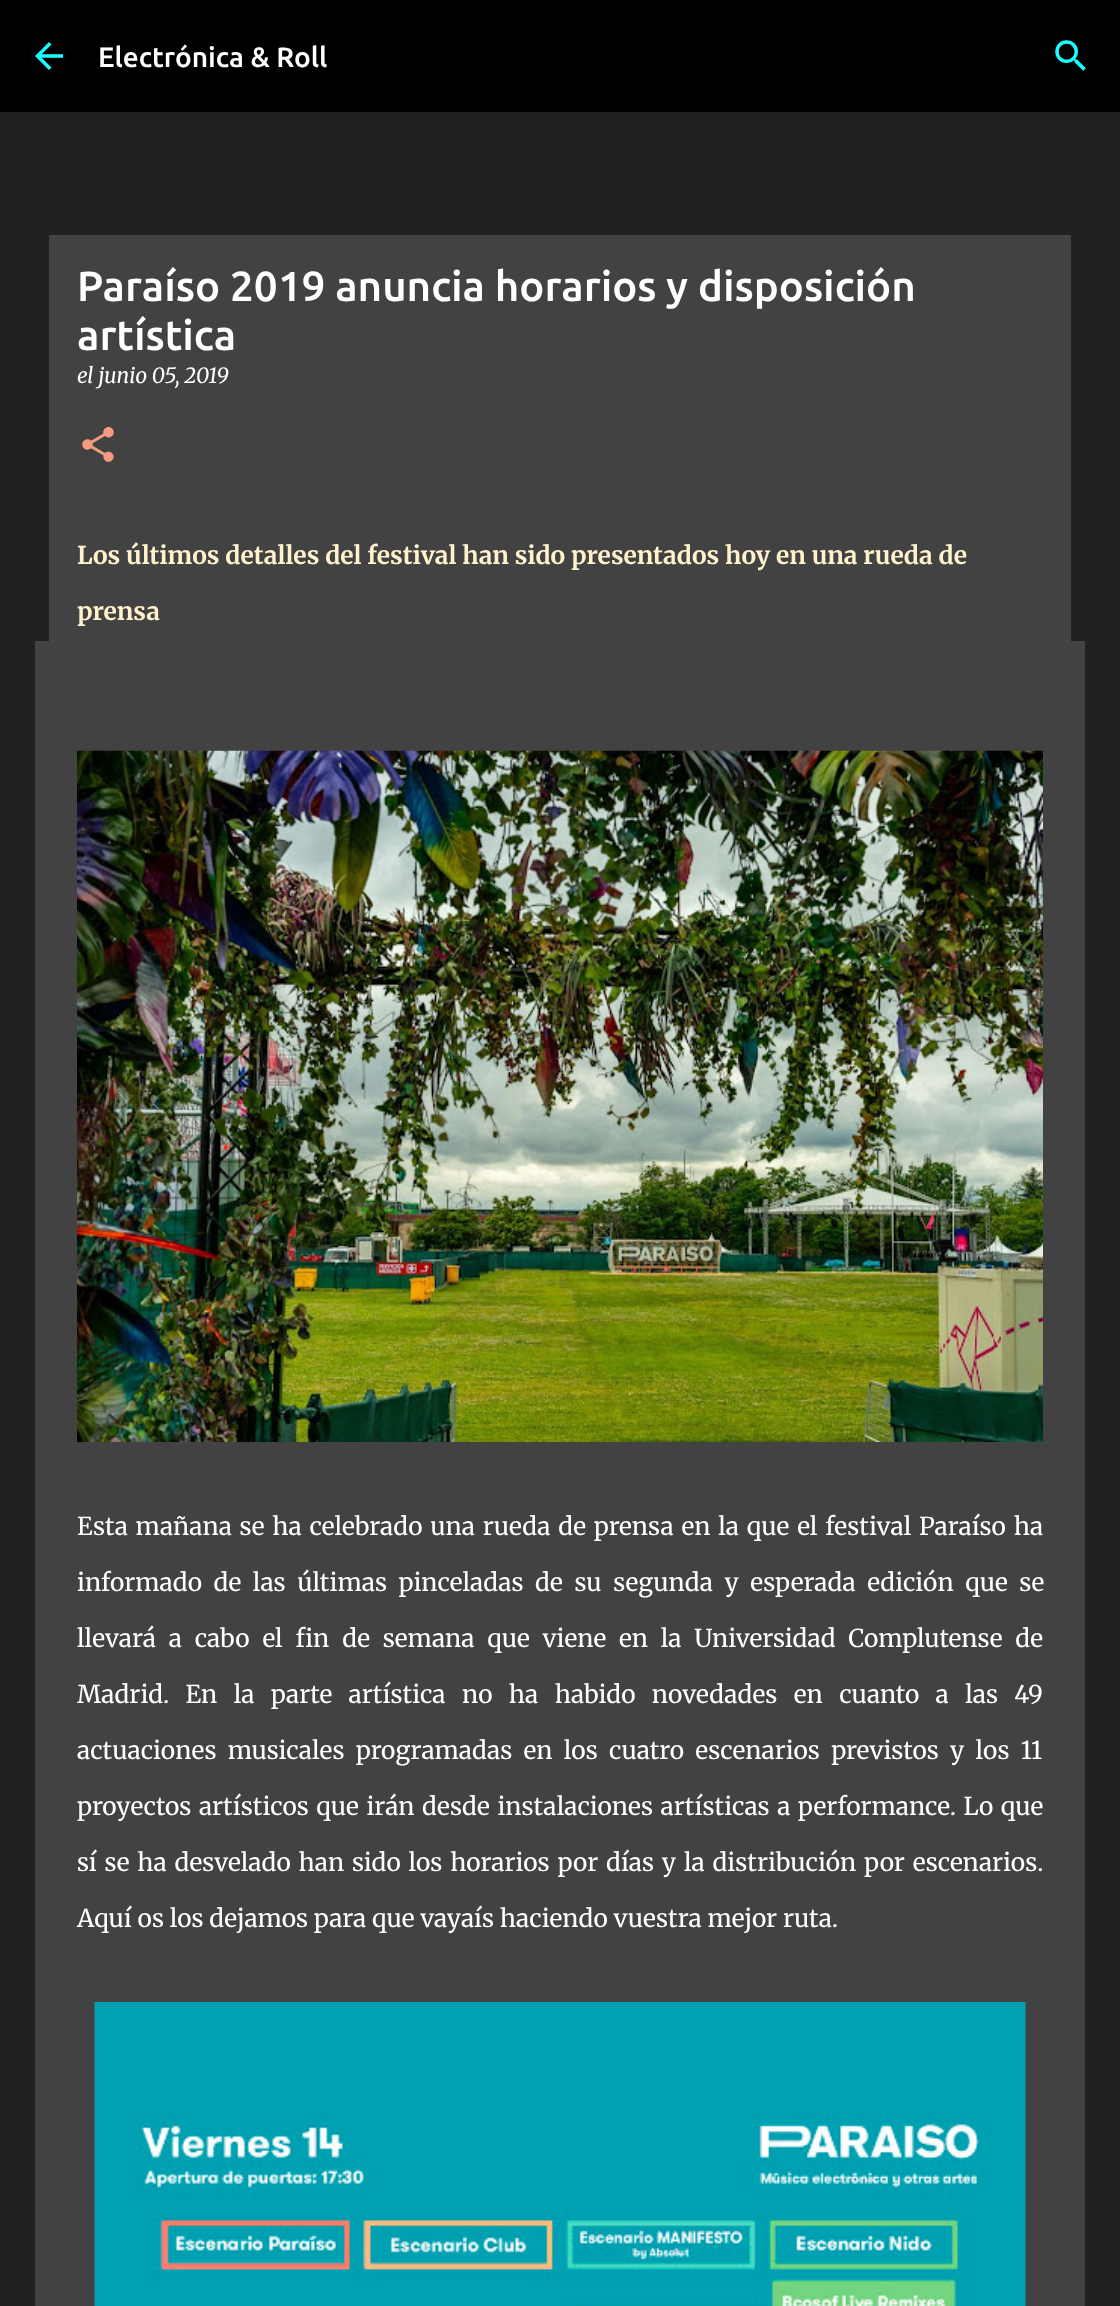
(async () => {
const canvas = document.querySelector("canvas")
canvas.width = 1120
canvas.height = 2306
const c = canvas.getContext("2d")
c.miterLimit = 4
c.fontKerning = "normal"
function T(s,x,y){c.fillText(s,x,y)}
function R(x,y,w,h){c.fillRect(x,y,w,h)}
async function I(src,x,y,w,h){const img=new Image();img.src=src;await img.decode();c.drawImage(img,x,y,w,h)}
c.fillStyle="#212121"
R(0,0,1120,2306)
c.fillStyle="#000"
R(0,0,1120,112)
await I("1.png",35,42,28,28)
c.font="500 28px Ubuntu"
c.fillStyle="#fff"
T("Electrónica & Roll",98,67)
await I("2.png",1055,40,31,31)
c.fillStyle="#424242"
R(35,641,1050,1665)
R(49,235,1022,406)
c.font="500 42px Ubuntu"
c.fillStyle="#fff"
T("Paraíso 2019 anuncia horarios y disposición",77,301)
T("artística",77,350)
c.font="italic 21px Merriweather"
T("el junio 05, 2019",77,383)
await I("3.png",82,427,32,35)
c.font="bold 24.5px Merriweather"
c.fillStyle="#fff2cc"
T("Los últimos detalles del festival han sido presentados hoy en una rueda de",77,564)
T("prensa",77,620)
await I("4.png",77,750,966,692)
c.wordSpacing="2px"
c.font="24.5px Merriweather"
c.fillStyle="#fff"
T("Esta mañana se ha celebrado una rueda de prensa en la que el festival Paraíso ha",77,1535)
c.wordSpacing="5.75px"
T("informado de las últimas pinceladas de su segunda y esperada edición que se",77,1591)
c.wordSpacing="7px"
T("llevará a cabo el fin de semana que viene en la Universidad Complutense de",77,1647)
c.wordSpacing="10.6px"
T("Madrid. En la parte artística no ha habido novedades en cuanto a las 49",77,1703)
c.wordSpacing="5.5px"
T("actuaciones musicales programadas en los cuatro escenarios previstos y los 11",77,1759)
c.wordSpacing="1.75px"
T("proyectos artísticos que irán desde instalaciones artísticas a performance. Lo que",77,1815)
c.wordSpacing="2px"
T("sí se ha desvelado han sido los horarios por días y la distribución por escenarios.",77,1871)
c.wordSpacing="0px"
T("Aquí os los dejamos para que vayaís haciendo vuestra mejor ruta.",77,1927)
await I("5.png",94,2002,932,304)
})()
